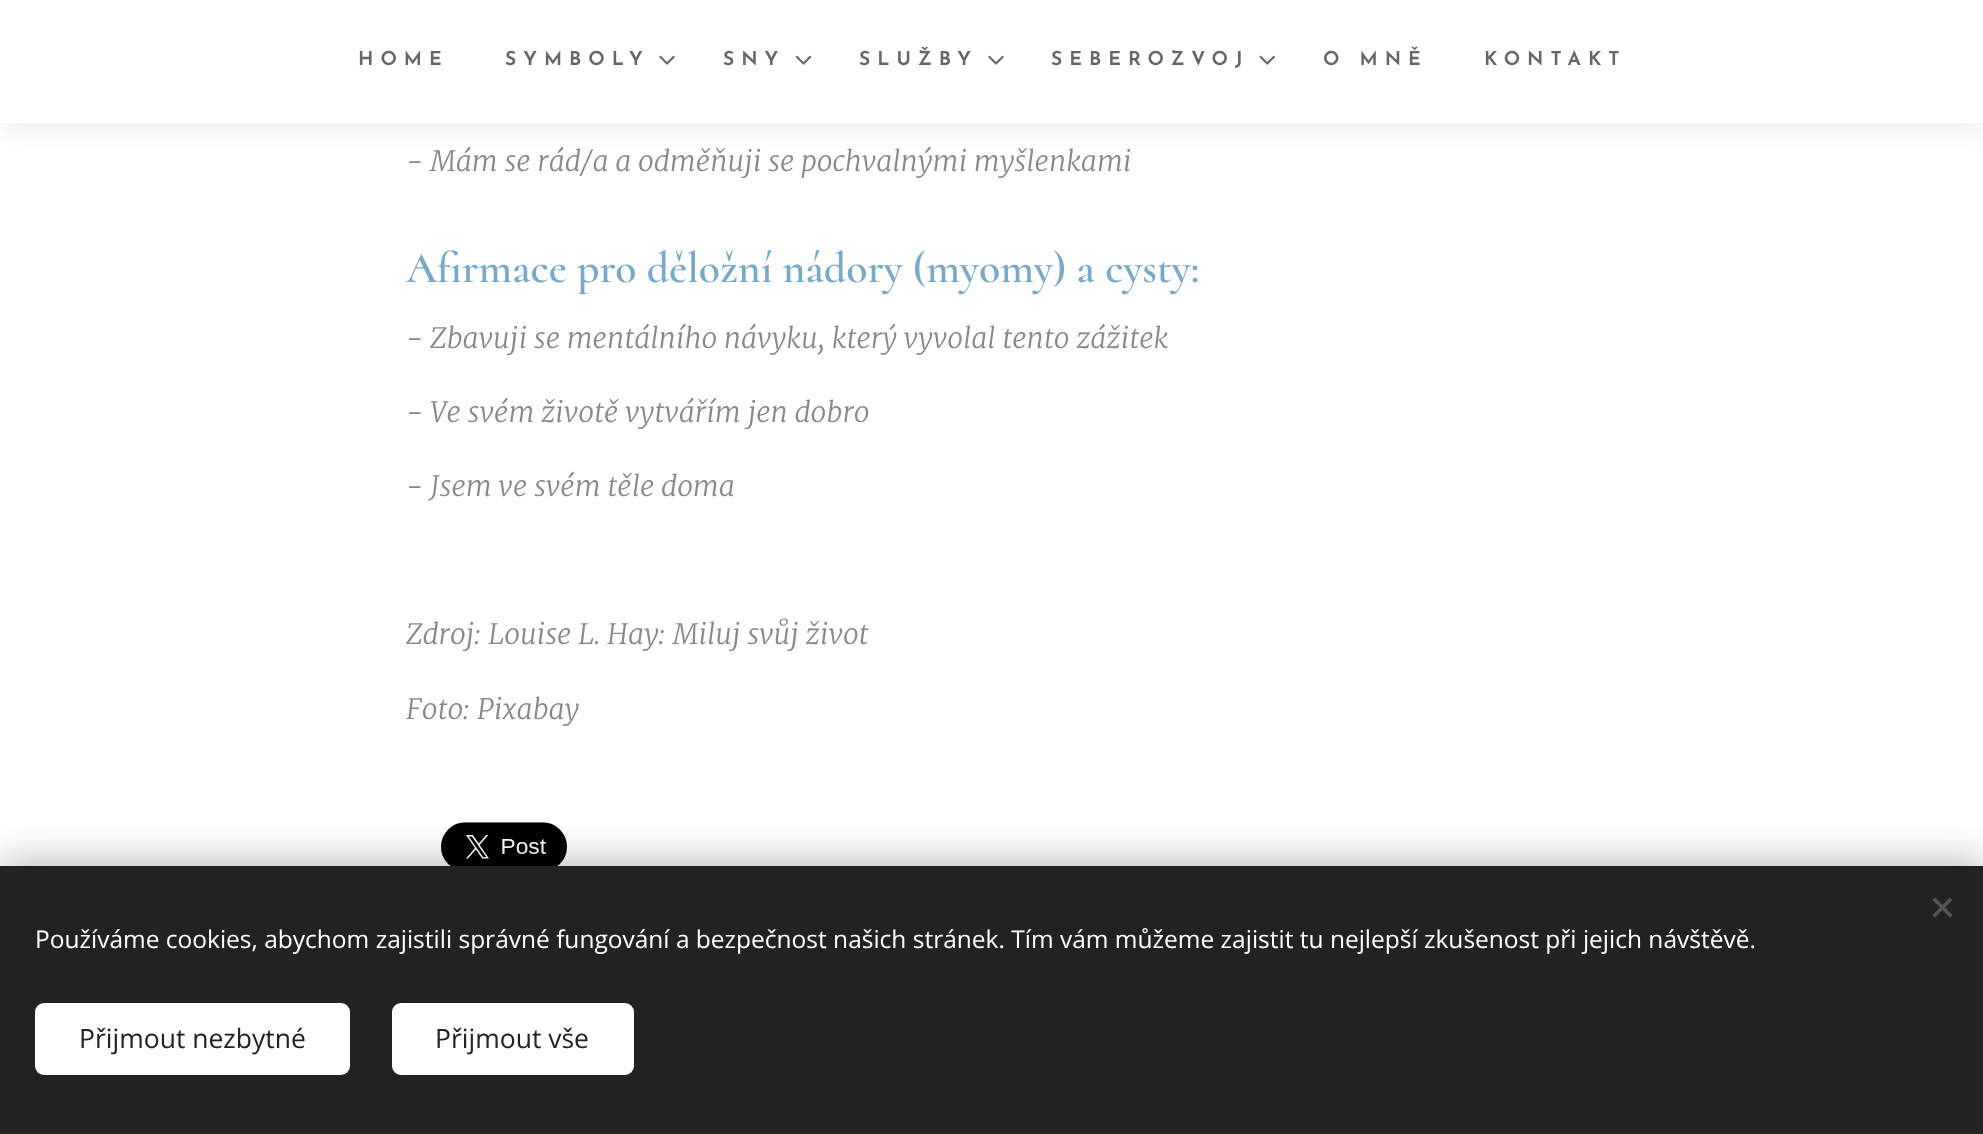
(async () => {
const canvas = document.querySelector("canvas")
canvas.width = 1983
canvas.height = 1134
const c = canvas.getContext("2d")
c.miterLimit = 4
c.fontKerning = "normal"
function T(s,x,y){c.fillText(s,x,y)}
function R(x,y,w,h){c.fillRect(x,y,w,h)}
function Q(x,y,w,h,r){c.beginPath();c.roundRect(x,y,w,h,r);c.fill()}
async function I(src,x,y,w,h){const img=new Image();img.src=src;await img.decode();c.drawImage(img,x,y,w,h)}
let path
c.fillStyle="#fff"
R(0,0,1983,1134)
c.fillStyle="#00000012"
c.filter="blur(13px)"
c.beginPath()
c.rect(0,9,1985,122)
c.fill()
c.filter="none"
c.fillStyle="#fff"
R(0,0,1983,123)
c.letterSpacing="7px"
c.font="600 19.25px Josefin Sans"
c.fillStyle="#666"
T("HOME",358,65)
T("SYMBOLY",505,65)
await I("1.png",659,55,16,10)
T("SNY",723,65)
await I("2.png",795,55,17,10)
T("SLUŽBY",859,65)
await I("1.png",988,55,16,10)
T("SEBEROZVOJ",1051,65)
await I("3.png",1259,55,16,10)
T("O MNĚ",1323,65)
T("KONTAKT",1484,65)
c.letterSpacing="0px"
c.font="italic 300 28px Merriweather"
c.fillStyle="#888"
T("- Mám se rád/a a odměňuji se pochvalnými myšlenkami",406,171)
c.font="600 43.75px Cormorant"
c.fillStyle="#77a9ca"
T("Afirmace pro děložní nádory (myomy) a cysty:",406,282)
c.font="italic 300 28px Merriweather"
c.fillStyle="#888"
T("- Zbavuji se mentálního návyku, který vyvolal tento zážitek",406,348)
T("- Ve svém životě vytvářím jen dobro",406,422)
T("- Jsem ve svém těle doma",406,496)
T("Zdroj: Louise L. Hay: Miluj svůj život",406,644)
T("Foto: Pixabay",406,719)
await I("4.png",441,822,126,44)
c.fillStyle="#00000054"
c.filter="blur(22px)"
c.beginPath()
c.rect(0,866,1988,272)
c.fill()
c.filter="none"
c.fillStyle="#222"
R(0,866,1983,268)
c.fillStyle="#555"
path = new Path2D("M1932.5 915l17.5-17.5l2.5 2.5l-17.5 17.5z")
c.fill(path)
path = new Path2D("M1935 897.5l17.5 17.5l-2.5 2.5l-17.5-17.5z")
c.fill(path)
c.font="24.5px Open Sans"
c.fillStyle="#fff"
T("Používáme cookies, abychom zajistili správné fungování a bezpečnost našich stránek. Tím vám můžeme zajistit tu nejlepší zkušenost při jejich návštěvě.",35,948)
Q(35,1003,315,72,9)
c.font="26.5px Open Sans"
c.fillStyle="#222"
T("Přijmout nezbytné",79,1048)
c.fillStyle="#fff"
Q(392,1003,242,72,9)
c.fillStyle="#222"
T("Přijmout vše",435,1048)
})()
